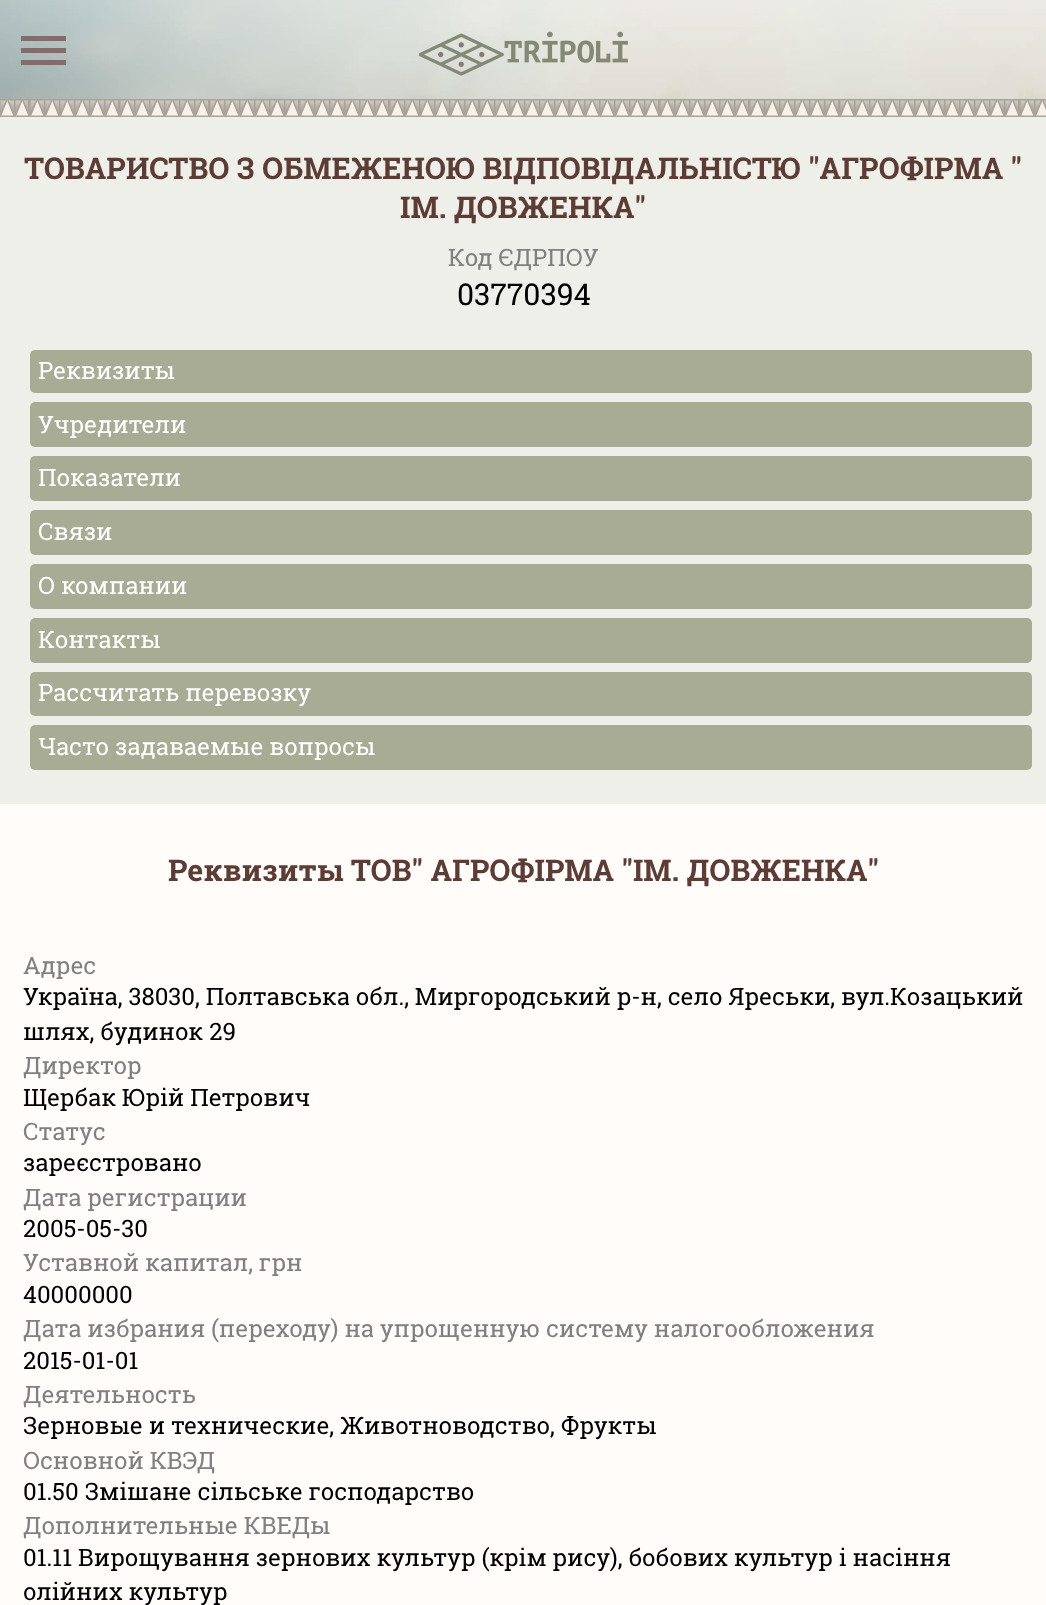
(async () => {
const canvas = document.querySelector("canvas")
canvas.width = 1046
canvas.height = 1605
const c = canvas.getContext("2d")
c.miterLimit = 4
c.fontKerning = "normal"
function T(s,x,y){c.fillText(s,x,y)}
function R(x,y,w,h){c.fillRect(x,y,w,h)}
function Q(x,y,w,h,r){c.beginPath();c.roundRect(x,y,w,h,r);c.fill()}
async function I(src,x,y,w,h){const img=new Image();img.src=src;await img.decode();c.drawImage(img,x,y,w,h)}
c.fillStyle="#fffcf9"
R(0,0,1046,1605)
await I("1.png",0,0,1046,99)
c.fillStyle="#816e6b"
R(21,36,45,5)
R(21,48,45,5)
R(21,60,45,5)
await I("2.png",419,33,85,43)
await I("3.png",504,31,124,32)
await I("4.png",0,99,1046,18)
c.fillStyle="#eeefe8"
R(0,117,1046,687)
c.font="bold 30px Roboto Slab"
c.fillStyle="#5c3c35"
T("ТОВАРИСТВО З ОБМЕЖЕНОЮ ВІДПОВІДАЛЬНІСТЮ \"АГРОФІРМА \"",24,179)
T("ІМ. ДОВЖЕНКА\"",400,218)
c.font="24px Roboto Slab"
c.fillStyle="#808080"
T("Код ЄДРПОУ",448,266)
c.font="30px Roboto Slab"
c.fillStyle="#000"
T("03770394",457,305)
c.fillStyle="#a8ac94"
Q(30,350,1002,43,5)
c.font="24px Roboto Slab"
c.fillStyle="#fff"
T("Реквизиты",38,379)
c.fillStyle="#a8ac94"
Q(30,402,1002,45,5)
c.fillStyle="#fff"
T("Учредители",38,433)
c.fillStyle="#a8ac94"
Q(30,456,1002,45,5)
c.fillStyle="#fff"
T("Показатели",38,486)
c.fillStyle="#a8ac94"
Q(30,510,1002,45,5)
c.fillStyle="#fff"
T("Связи",38,540)
c.fillStyle="#a8ac94"
Q(30,564,1002,45,5)
c.fillStyle="#fff"
T("О компании",38,594)
c.fillStyle="#a8ac94"
Q(30,618,1002,45,5)
c.fillStyle="#fff"
T("Контакты",38,648)
c.fillStyle="#a8ac94"
Q(30,672,1002,44,5)
c.fillStyle="#fff"
T("Рассчитать перевозку",38,701)
c.fillStyle="#a8ac94"
Q(30,725,1002,45,5)
c.fillStyle="#fff"
T("Часто задаваемые вопросы",38,755)
c.font="bold 30px Roboto Slab"
c.fillStyle="#5c3c35"
T("Реквизиты ТОВ\" АГРОФІРМА \"ІМ. ДОВЖЕНКА\"",168,881)
c.font="24px Roboto Slab"
c.fillStyle="#808080"
T("Адрес",23,974)
c.fillStyle="#000"
T("Україна, 38030, Полтавська обл., Миргородський р-н, село Яреськи, вул.Козацький",23,1005)
T("шлях, будинок 29",23,1040)
c.fillStyle="#808080"
T("Директор",23,1074)
c.fillStyle="#000"
T("Щербак Юрій Петрович",23,1106)
c.fillStyle="#808080"
T("Статус",23,1140)
c.fillStyle="#000"
T("зареєстровано",23,1171)
c.fillStyle="#808080"
T("Дата регистрации",23,1206)
c.fillStyle="#000"
T("2005-05-30",23,1237)
c.fillStyle="#808080"
T("Уставной капитал, грн",23,1271)
c.fillStyle="#000"
T("40000000",23,1303)
c.fillStyle="#808080"
T("Дата избрания (переходу) на упрощенную систему налогообложения",23,1337)
c.fillStyle="#000"
T("2015-01-01",23,1369)
c.fillStyle="#808080"
T("Деятельность",23,1403)
c.fillStyle="#000"
T("Зерновые и технические, Животноводство, Фрукты",23,1434)
c.fillStyle="#808080"
T("Основной КВЭД",23,1469)
c.fillStyle="#000"
T("01.50 Змішане сільське господарство",23,1500)
c.fillStyle="#808080"
T("Дополнительные КВЕДы",23,1534)
c.fillStyle="#000"
T("01.11 Вирощування зернових культур (крім рису), бобових культур і насіння",23,1566)
T("олійних культур",23,1600)
})()
